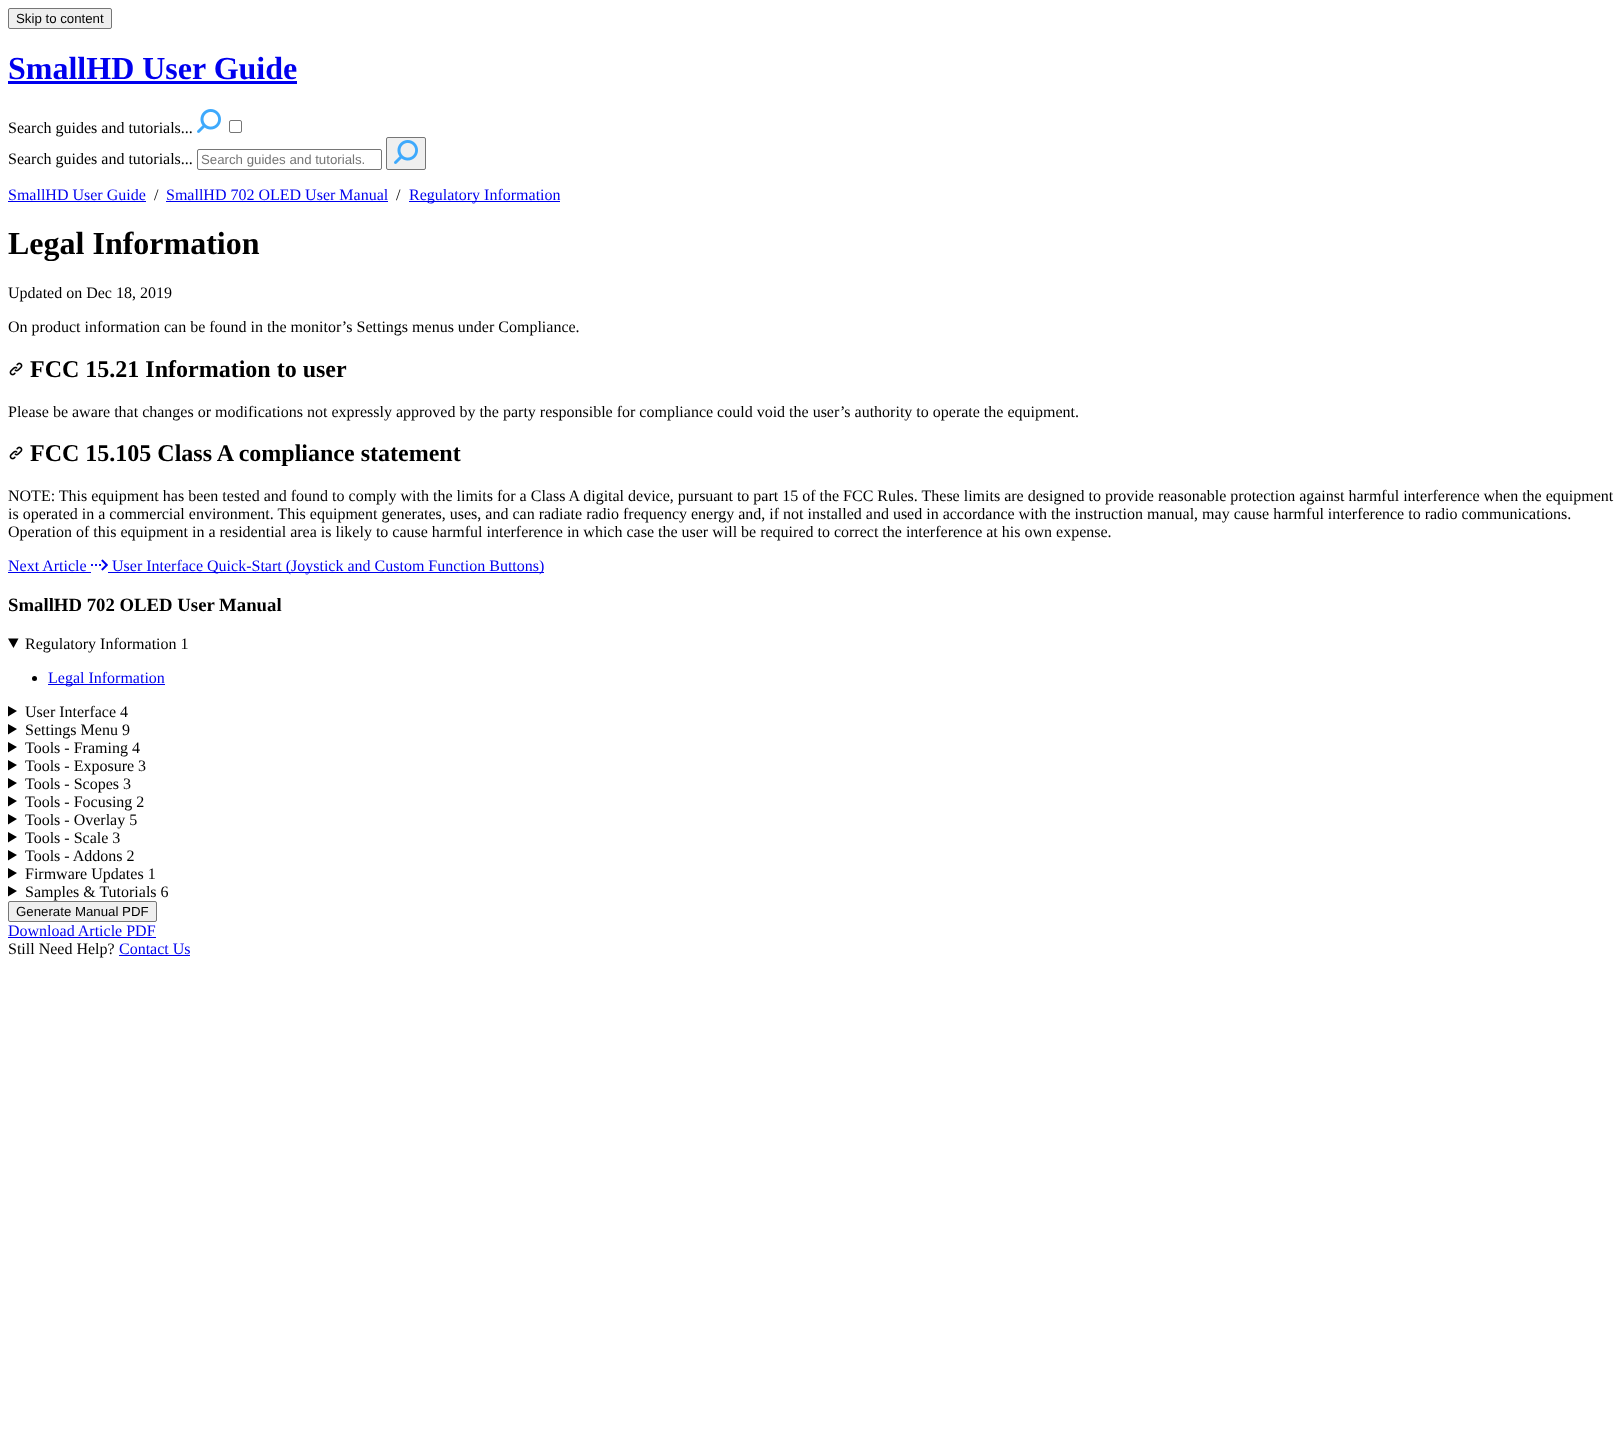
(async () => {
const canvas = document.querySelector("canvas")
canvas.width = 1624
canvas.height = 1435
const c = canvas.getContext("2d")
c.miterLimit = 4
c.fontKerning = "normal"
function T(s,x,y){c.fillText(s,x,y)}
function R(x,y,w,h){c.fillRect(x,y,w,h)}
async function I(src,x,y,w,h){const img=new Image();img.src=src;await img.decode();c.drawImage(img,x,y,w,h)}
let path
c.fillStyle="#fff"
R(0,0,1624,1435)
c.fillStyle="#efefef"
c.beginPath()
c.roundRect(8.5,8.5,103,20,1.5)
c.fill()
c.strokeStyle="#767676"
c.stroke()
c.font="13.25px Liberation Sans"
c.fillStyle="#000"
T("Skip to content",16,23)
c.font="bold 32px Liberation Serif"
c.fillStyle="#00e"
T("SmallHD User Guide",8,79)
R(8,81,289,3)
c.font="16px Liberation Serif"
c.fillStyle="#000"
T("Search guides and tutorials...",8,133)
await I("1.png",197,109,24,24)
c.beginPath()
c.roundRect(229.5,120.5,12,12,1.5)
c.stroke()
T("Search guides and tutorials...",8,164)
c.beginPath()
c.roundRect(197.5,149.5,184,20,1.5)
c.stroke()
c.font="13.25px Liberation Sans"
c.fillStyle="#757575"
T("Search guides and tutorials.",201,164)
c.fillStyle="#efefef"
c.beginPath()
c.roundRect(386.5,137.5,39,32,1.5)
c.fill()
c.stroke()
await I("2.png",394,140,24,24)
c.font="16px Liberation Serif"
c.fillStyle="#00e"
T("SmallHD User Guide",8,200)
R(8,201,138,1)
c.fillStyle="#000"
T("/",154,200)
c.fillStyle="#00e"
T("SmallHD 702 OLED User Manual",166,200)
R(166,201,222,1)
c.fillStyle="#000"
T("/",396,200)
c.fillStyle="#00e"
R(409,201,151,1)
T("Regulatory Information",409,200)
c.font="bold 32px Liberation Serif"
c.fillStyle="#000"
T("Legal Information",8,254)
c.font="16px Liberation Serif"
T("Updated on Dec 18, 2019",8,298)
T("On product information can be found in the monitor’s Settings menus under Compliance.",8,332)
await I("3.png",9,362,14,14)
c.font="bold 24px Liberation Serif"
T("FCC 15.21 Information to user",30,377)
c.font="16px Liberation Serif"
T("Please be aware that changes or modifications not expressly approved by the party responsible for compliance could void the user’s authority to operate the equipment.",8,417)
await I("3.png",9,446,14,14)
c.font="bold 24px Liberation Serif"
T("FCC 15.105 Class A compliance statement",30,461)
c.font="16px Liberation Serif"
T("NOTE: This equipment has been tested and found to comply with the limits for a Class A digital device, pursuant to part 15 of the FCC Rules. These limits are designed to provide reasonable protection against harmful interference when the equipment",8,501)
T("is operated in a commercial environment. This equipment generates, uses, and can radiate radio frequency energy and, if not installed and used in accordance with the instruction manual, may cause harmful interference to radio communications.",8,519)
T("Operation of this equipment in a residential area is likely to cause harmful interference in which case the user will be required to correct the interference at his own expense.",8,537)
c.fillStyle="#00e"
T("Next Article",8,571)
R(8,572,83,1)
await I("4.png",91,559,17,12)
R(108,572,436,1)
T("User Interface Quick-Start (Joystick and Custom Function Buttons)",112,571)
c.font="bold 18.75px Liberation Serif"
c.fillStyle="#000"
T("SmallHD 702 OLED User Manual",8,611)
path = new Path2D("M8 638.5h10.5l-5 9.5z")
c.fill(path)
c.font="16px Liberation Serif"
T("Regulatory Information 1",25,649)
c.beginPath()
c.arc(34.5,678.5,2.5,0,7)
c.fill()
c.fillStyle="#00e"
R(48,684,117,1)
T("Legal Information",48,683)
c.fillStyle="#000"
path = new Path2D("M8 706l9 5l-9 5.5z")
c.fill(path)
T("User Interface 4",25,717)
path = new Path2D("M8 724l9 5l-9 5.5z")
c.fill(path)
T("Settings Menu 9",25,735)
path = new Path2D("M8 742l9 5l-9 5.5z")
c.fill(path)
T("Tools - Framing 4",25,753)
path = new Path2D("M8 760l9 5l-9 5.5z")
c.fill(path)
T("Tools - Exposure 3",25,771)
path = new Path2D("M8 778l9 5l-9 5.5z")
c.fill(path)
T("Tools - Scopes 3",25,789)
path = new Path2D("M8 796l9 5l-9 5.5z")
c.fill(path)
T("Tools - Focusing 2",25,807)
path = new Path2D("M8 814l9 5l-9 5.5z")
c.fill(path)
T("Tools - Overlay 5",25,825)
path = new Path2D("M8 832l9 5l-9 5.5z")
c.fill(path)
T("Tools - Scale 3",25,843)
path = new Path2D("M8 850l9 5l-9 5.5z")
c.fill(path)
T("Tools - Addons 2",25,861)
path = new Path2D("M8 868l9 5l-9 5.5z")
c.fill(path)
T("Firmware Updates 1",25,879)
path = new Path2D("M8 886l9 5l-9 5.5z")
c.fill(path)
T("Samples & Tutorials 6",25,897)
c.fillStyle="#efefef"
c.beginPath()
c.roundRect(8.5,901.5,148,20,1.5)
c.fill()
c.stroke()
c.font="13.25px Liberation Sans"
c.fillStyle="#000"
T("Generate Manual PDF",16,916)
c.font="16px Liberation Serif"
c.fillStyle="#00e"
T("Download Article PDF",8,936)
R(8,937,148,1)
c.fillStyle="#000"
T("Still Need Help?",8,954)
c.fillStyle="#00e"
T("Contact Us",119,954)
R(119,955,71,1)
})()
